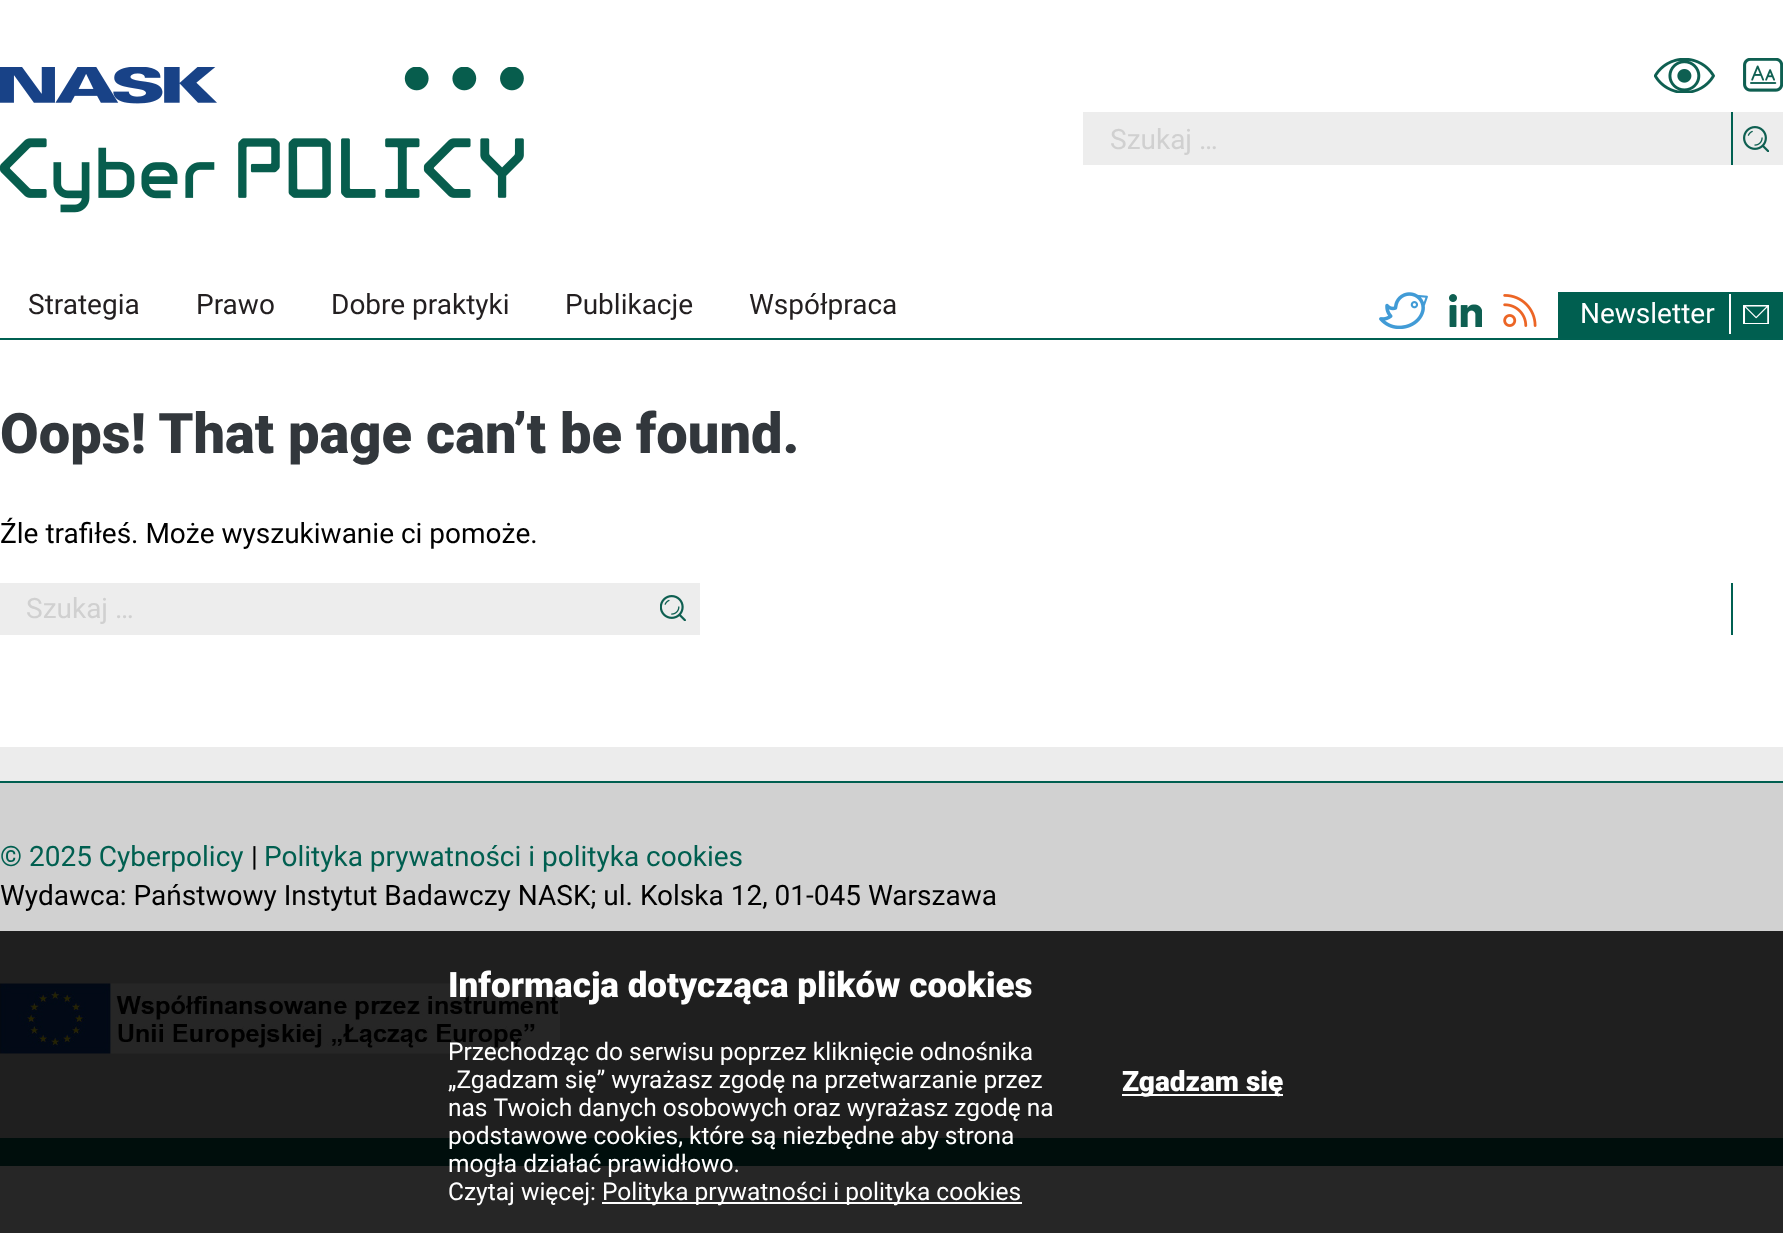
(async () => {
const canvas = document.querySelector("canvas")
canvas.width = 1783
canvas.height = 1233
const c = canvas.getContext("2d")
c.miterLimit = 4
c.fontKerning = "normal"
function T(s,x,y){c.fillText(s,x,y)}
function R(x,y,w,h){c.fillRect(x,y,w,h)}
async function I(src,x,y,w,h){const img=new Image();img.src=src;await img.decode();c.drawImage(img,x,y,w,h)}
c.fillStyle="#fff"
R(0,0,1783,1233)
await I("1.png",0,67,524,146)
await I("2.png",1654,58,61,35)
await I("3.png",1743,58,40,34)
c.fillStyle="#ededed"
R(1083,112,700,53)
await I("4.png",1743,126,26,26)
c.font="28px Roboto"
c.fillStyle="#d0d0d0"
T("Szukaj …",1110,149)
c.fillStyle="#006051"
R(1731,112,2,53)
R(0,338,1783,2)
c.fillStyle="#231f20"
T("Strategia",28,314)
T("Prawo",196,314)
T("Dobre praktyki",331,314)
T("Publikacje",565,314)
T("Współpraca",749,314)
await I("5.png",1379,292,49,37)
await I("6.png",1449,294,33,33)
await I("7.png",1503,294,34,33)
c.fillStyle="#005f50"
R(1558,292,225,46)
await I("8.png",1743,305,26,19)
c.fillStyle="#fff"
R(1729,294,2,40)
T("Newsletter",1580,323)
c.fillStyle="#ececec"
R(0,747,1783,34)
c.font="900 56px Roboto"
c.fillStyle="#32373c"
T("Oops! That page can’t be found.",0,453)
c.font="28px Roboto"
c.fillStyle="#000"
T("Źle trafiłeś. Może wyszukiwanie ci pomoże.",0,543)
c.fillStyle="#ededed"
R(0,583,700,52)
await I("9.png",660,595,26,26)
c.fillStyle="#d0d0d0"
T("Szukaj …",26,618)
c.fillStyle="#006051"
R(1731,583,2,52)
c.fillStyle="#d1d1d1"
R(0,783,1783,355)
c.fillStyle="#005f50"
R(0,781,1783,2)
T("© 2025 Cyberpolicy",0,866)
c.fillStyle="#000"
T("|",251,866)
c.fillStyle="#005f50"
T("Polityka prywatności i polityka cookies",264,866)
c.fillStyle="#000"
T("Wydawca: Państwowy Instytut Badawczy NASK; ul. Kolska 12, 01-045 Warszawa",0,905)
await I("10.png",0,983,560,71)
c.fillStyle="#005f50"
R(0,1138,1783,28)
c.fillStyle="#000000d9"
R(0,931,1783,302)
c.font="900 35px Roboto"
c.fillStyle="#fff"
T("Informacja dotycząca plików cookies",448,997)
c.font="24.5px Roboto"
T("Przechodząc do serwisu poprzez kliknięcie odnośnika",448,1060)
T("„Zgadzam się” wyrażasz zgodę na przetwarzanie przez",448,1088)
T("nas Twoich danych osobowych oraz wyrażasz zgodę na",448,1116)
T("podstawowe cookies, które są niezbędne aby strona",448,1144)
T("mogła działać prawidłowo.",448,1172)
T("Czytaj więcej:",448,1200)
R(602,1202,420,2)
T("Polityka prywatności i polityka cookies",602,1200)
R(1122,1094,161,2)
c.font="900 28px Roboto"
T("Zgadzam się",1122,1091)
})()
